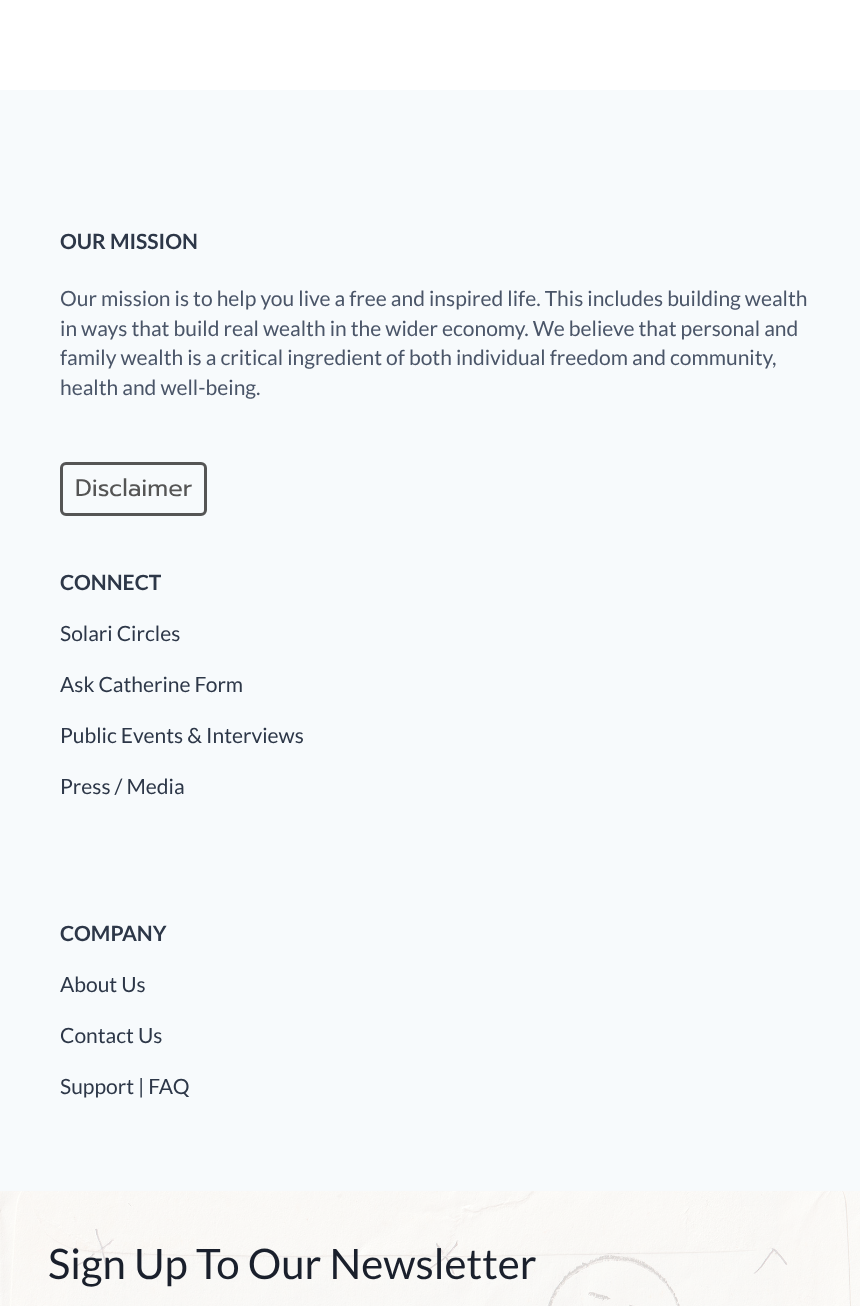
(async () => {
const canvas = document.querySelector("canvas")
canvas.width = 860
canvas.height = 1306
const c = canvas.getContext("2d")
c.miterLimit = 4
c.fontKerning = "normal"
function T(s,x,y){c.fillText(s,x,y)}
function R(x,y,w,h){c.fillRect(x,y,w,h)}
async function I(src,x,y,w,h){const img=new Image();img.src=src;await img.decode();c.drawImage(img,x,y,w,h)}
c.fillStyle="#fff"
R(0,0,860,1306)
c.fillStyle="#f7fafc"
R(0,90,860,1101)
c.font="bold 21px Lato"
c.fillStyle="#2d3748"
T("OUR MISSION",60,249)
c.font="21px Lato"
c.fillStyle="#4a5568"
T("Our mission is to help you live a free and inspired life. This includes building wealth",60,306)
T("in ways that build real wealth in the wider economy. We believe that personal and",60,336)
T("family wealth is a critical ingredient of both individual freedom and community,",60,365)
T("health and well-being.",60,395)
c.beginPath()
c.roundRect(61.5,463.5,144,51,4.5)
c.strokeStyle="#555"
c.lineWidth=3
c.stroke()
c.font="24px Prompt"
c.fillStyle="#555"
T("Disclaimer",75,496)
c.font="bold 21px Lato"
c.fillStyle="#2d3748"
T("CONNECT",60,590)
c.font="21px Lato"
T("Solari Circles",60,641)
T("Ask Catherine Form",60,692)
T("Public Events & Interviews",60,743)
T("Press / Media",60,794)
c.font="bold 21px Lato"
T("COMPANY",60,941)
c.font="21px Lato"
T("About Us",60,992)
T("Contact Us",60,1043)
T("Support | FAQ",60,1094)
await I("1.png",0,1191,860,115)
c.font="42px Lato"
c.fillStyle="#1a202c"
T("Sign Up To Our Newsletter",48,1279)
})()
